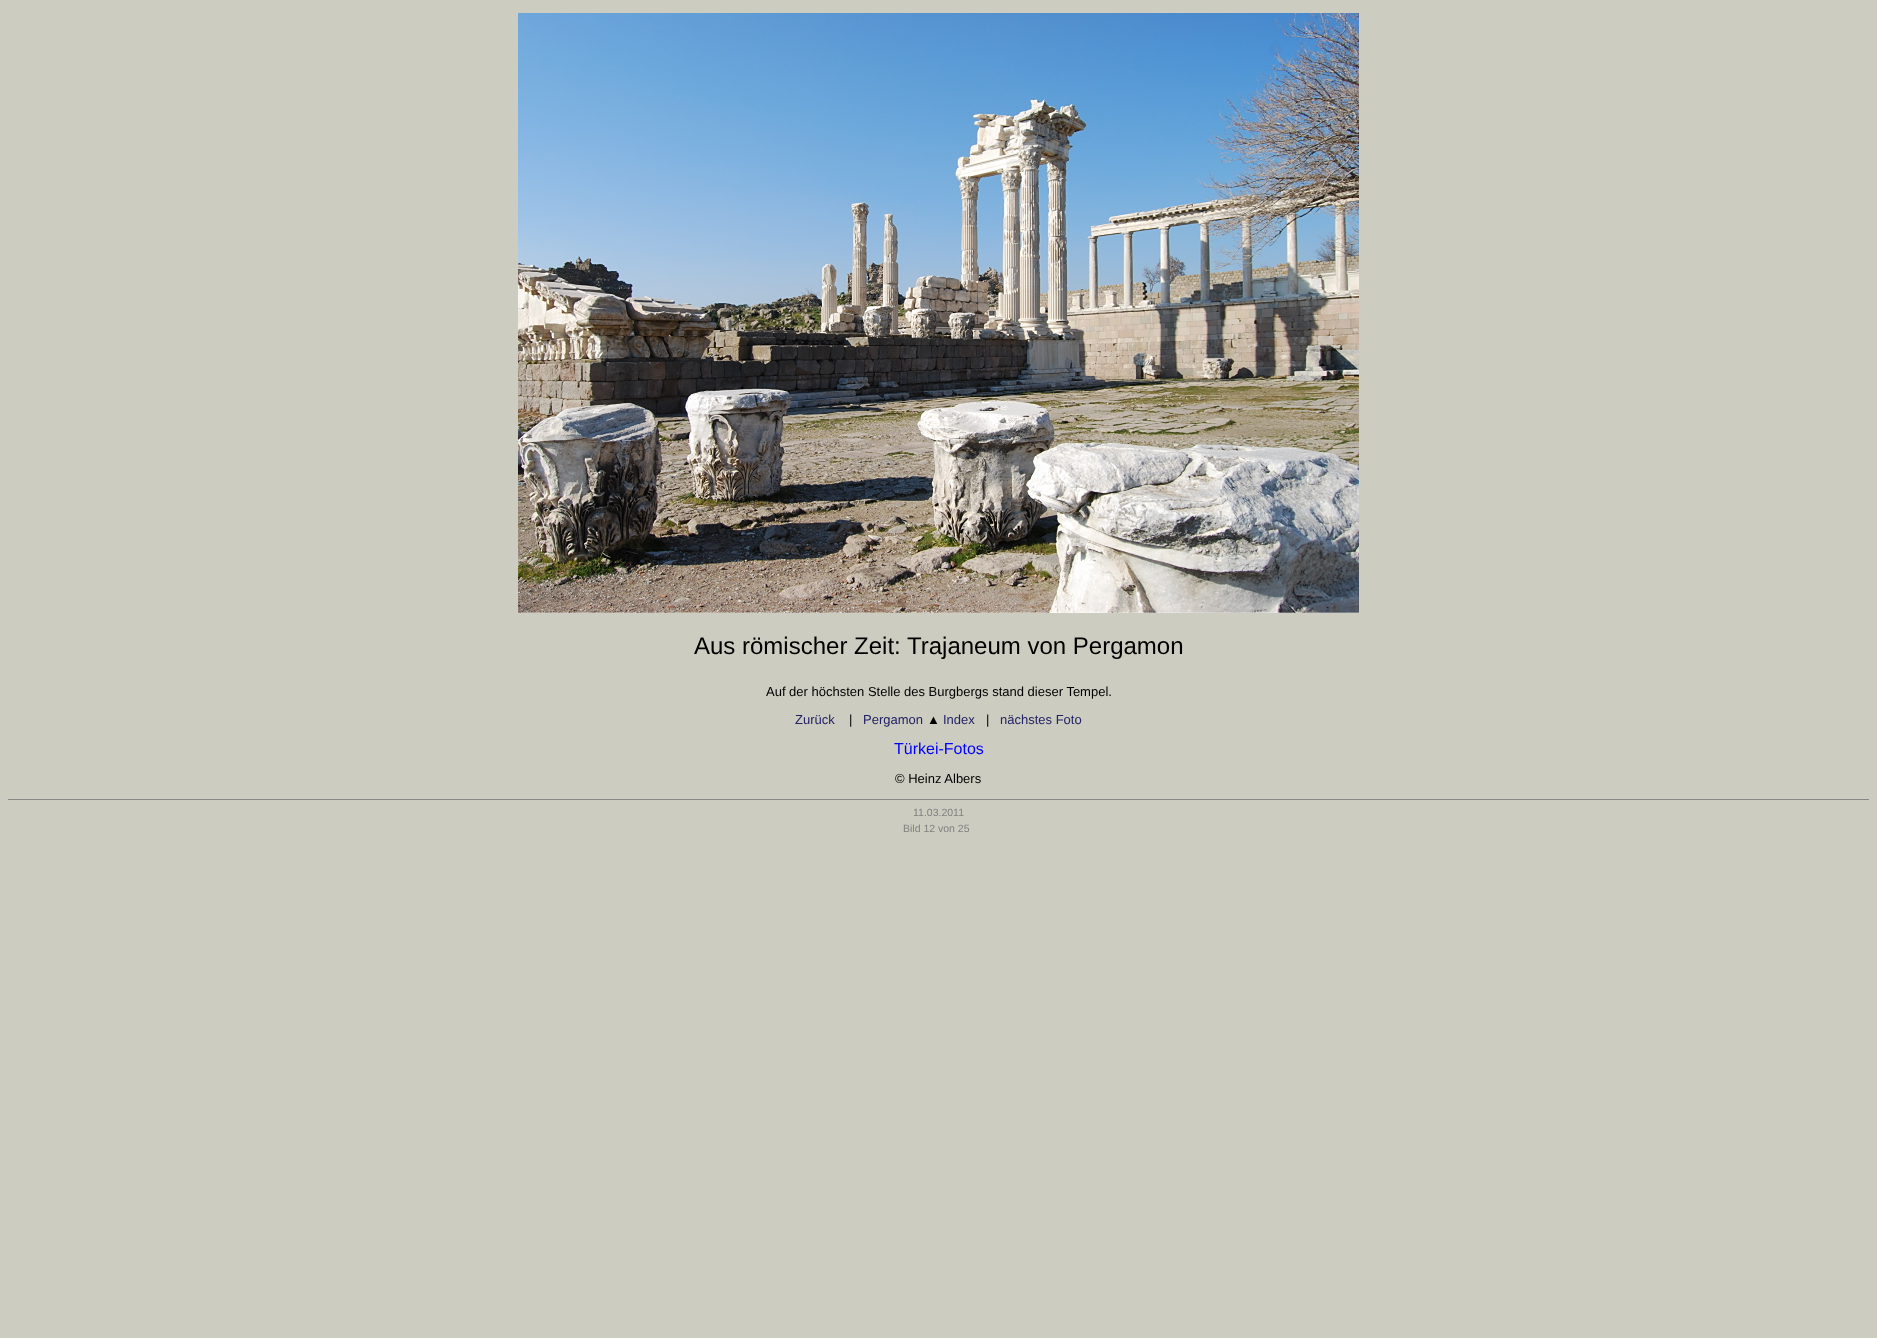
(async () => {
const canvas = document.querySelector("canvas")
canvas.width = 1877
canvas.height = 1338
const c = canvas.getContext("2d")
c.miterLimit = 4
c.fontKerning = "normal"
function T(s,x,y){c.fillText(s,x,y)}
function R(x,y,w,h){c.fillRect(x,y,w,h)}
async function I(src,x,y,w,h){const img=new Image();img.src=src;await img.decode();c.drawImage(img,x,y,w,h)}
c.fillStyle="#ccccc0"
R(0,0,1877,1338)
await I("1.png",518,13,841,600)
c.font="24px Liberation Sans"
c.fillStyle="#000"
T("Aus römischer Zeit: Trajaneum von Pergamon",694,654)
c.font="13px Liberation Sans"
T("Auf der höchsten Stelle des Burgbergs stand dieser Tempel.",766,696)
c.fillStyle="#226"
T("Zurück",795,724)
c.fillStyle="#000"
T("|",849,724)
c.fillStyle="#226"
T("Pergamon",863,724)
c.fillStyle="#000"
T("▲",927,724)
c.fillStyle="#226"
T("Index",943,724)
c.fillStyle="#000"
T("|",986,724)
c.fillStyle="#226"
T("nächstes Foto",1000,724)
c.font="16px Liberation Sans"
c.fillStyle="#00f"
T("Türkei-Fotos",894,754)
c.font="13px Liberation Sans"
c.fillStyle="#000"
T("© Heinz Albers",895,783)
c.fillStyle="#888"
R(8,799,1861,1)
c.font="10.5px Liberation Sans"
c.fillStyle="#808080"
T("11.03.2011",913,816)
T("Bild 12 von 25",903,832)
})()
